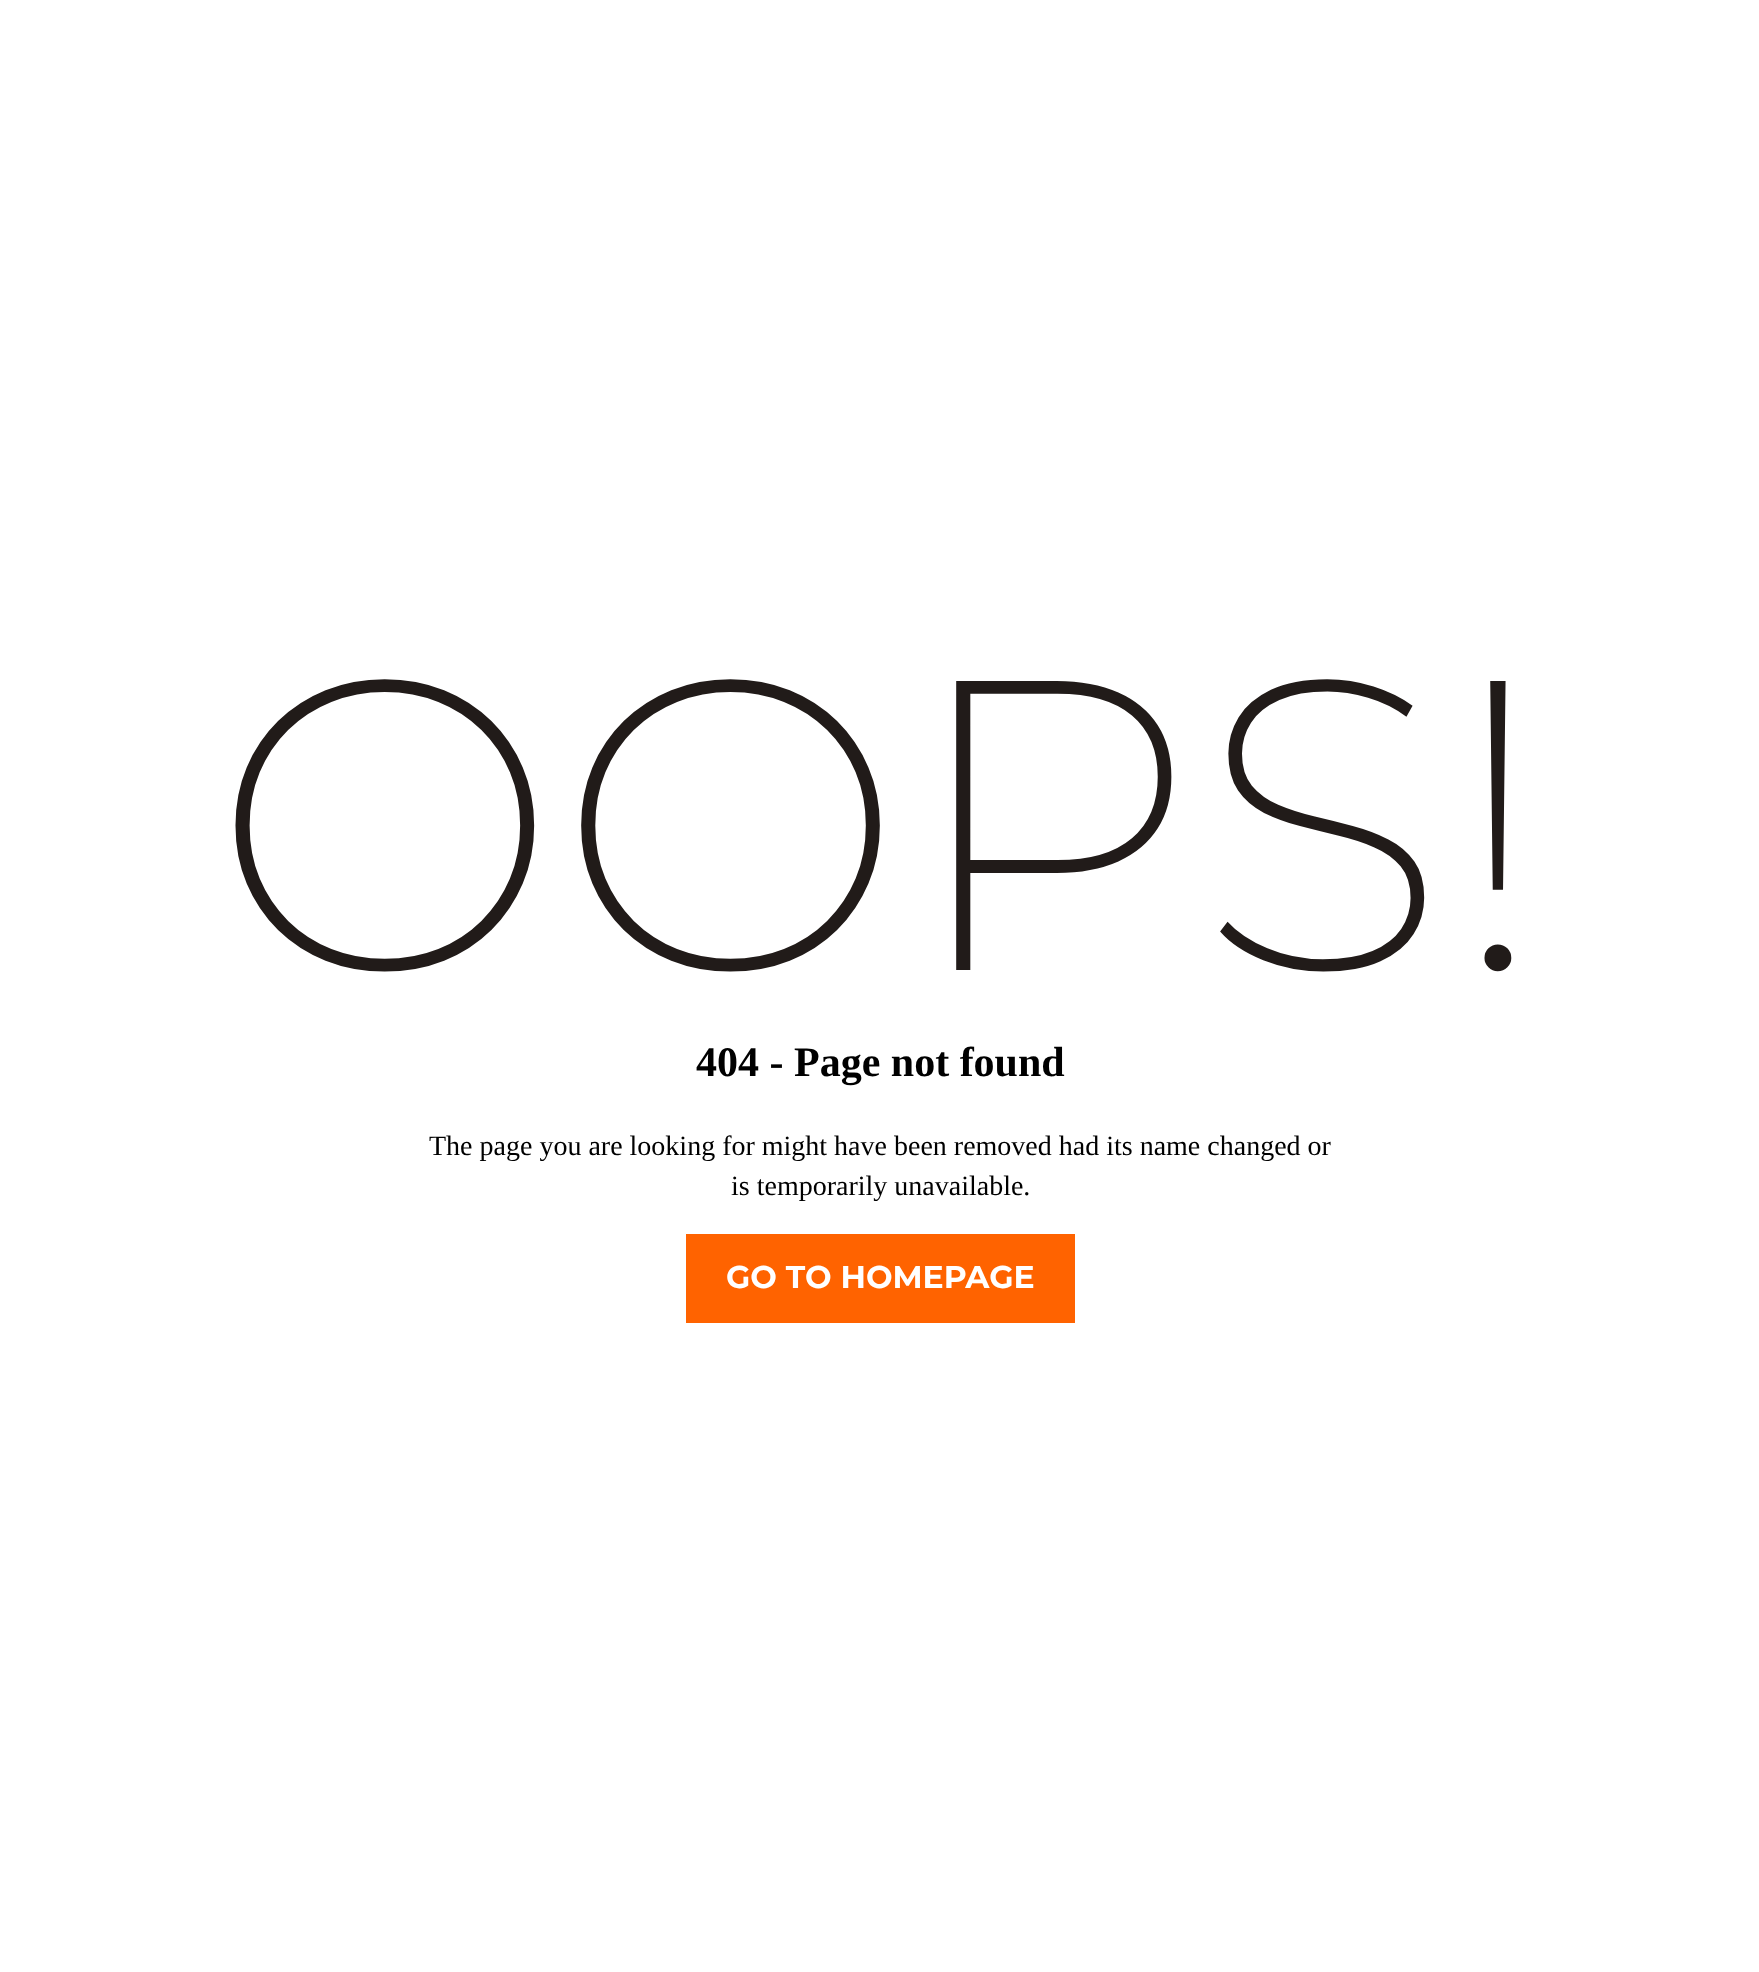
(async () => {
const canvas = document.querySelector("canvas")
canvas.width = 1759
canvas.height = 1972
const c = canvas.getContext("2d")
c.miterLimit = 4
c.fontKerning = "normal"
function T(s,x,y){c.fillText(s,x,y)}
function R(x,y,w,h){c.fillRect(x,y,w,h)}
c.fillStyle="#fff"
R(0,0,1759,1972)
c.font="200 413px Montserrat"
c.fillStyle="#211b19"
T("OOPS!",212,970)
c.font="bold 42px Liberation Serif"
c.fillStyle="#000"
T("404 - Page not found",696,1076)
c.font="28px Liberation Serif"
T("The page you are looking for might have been removed had its name changed or",429,1155)
T("is temporarily unavailable.",731,1195)
c.fillStyle="#ff6300"
R(686,1234,389,89)
c.font="bold 31.5px Montserrat"
c.fillStyle="#fff"
T("GO TO HOMEPAGE",726,1288)
})()
